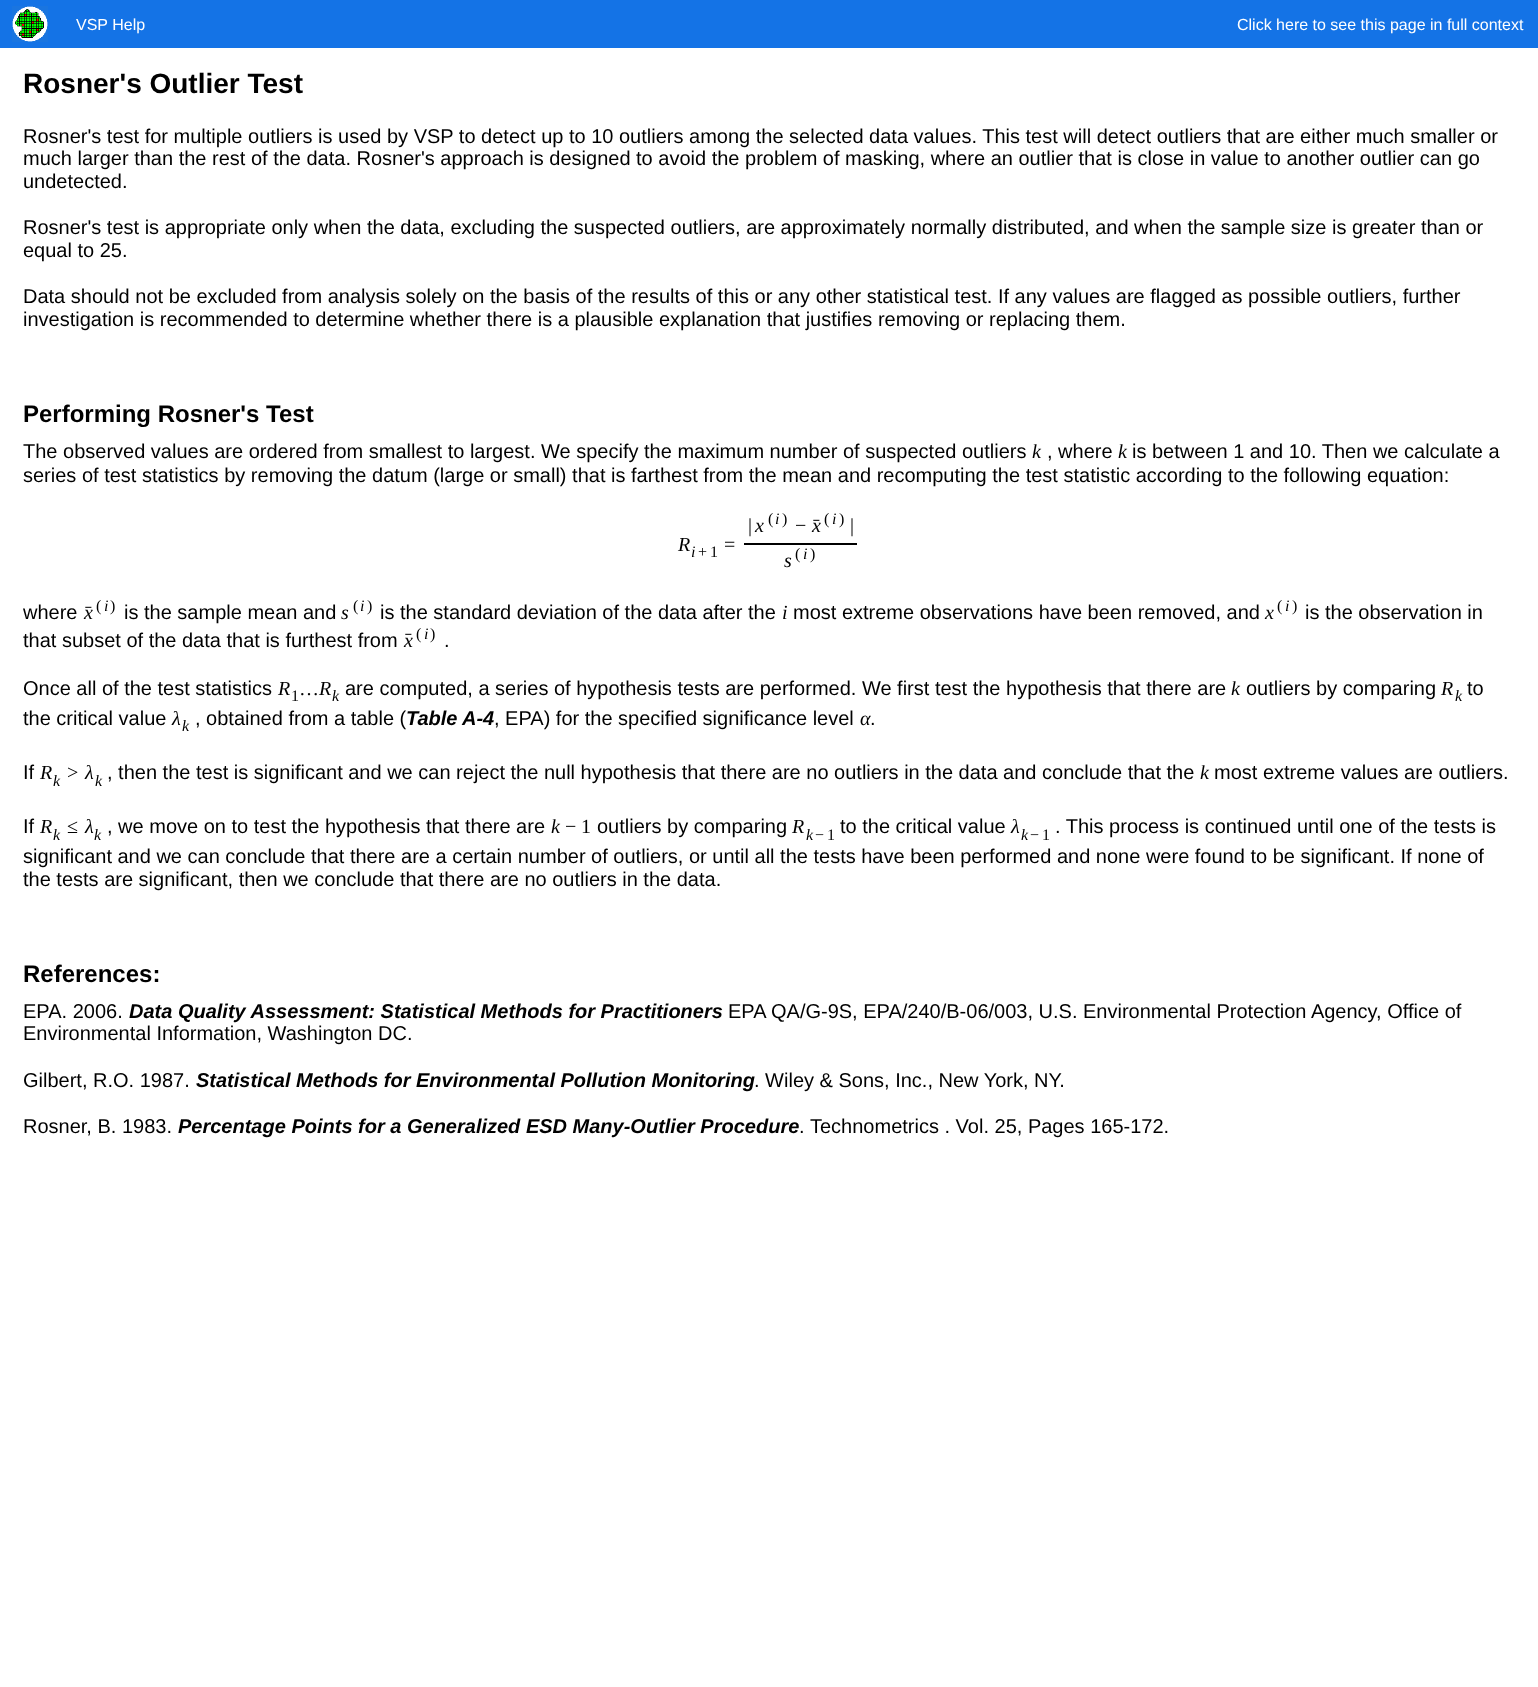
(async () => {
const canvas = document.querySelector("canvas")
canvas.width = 1538
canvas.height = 1687
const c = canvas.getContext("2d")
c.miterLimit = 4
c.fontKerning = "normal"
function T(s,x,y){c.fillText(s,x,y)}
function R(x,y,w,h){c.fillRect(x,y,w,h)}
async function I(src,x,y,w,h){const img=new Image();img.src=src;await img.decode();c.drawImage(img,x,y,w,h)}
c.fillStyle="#fff"
R(0,0,1538,1687)
c.fillStyle="#1473e6"
R(0,0,1538,48)
await I("1.png",12,6,36,36)
c.font="16px Liberation Sans"
c.fillStyle="#fff"
T("VSP Help",76,30)
T("Click here to see this page in full context",1237,30)
c.font="bold 28px Liberation Sans"
c.fillStyle="#000"
T("Rosner's Outlier Test",23,93)
c.font="20px Liberation Sans"
T("Rosner's test for multiple outliers is used by VSP to detect up to 10 outliers among the selected data values. This test will detect outliers that are either much smaller or",23,143)
T("much larger than the rest of the data. Rosner's approach is designed to avoid the problem of masking, where an outlier that is close in value to another outlier can go",23,165)
T("undetected.",23,188)
T("Rosner's test is appropriate only when the data, excluding the suspected outliers, are approximately normally distributed, and when the sample size is greater than or",23,234)
T("equal to 25.",23,257)
T("Data should not be excluded from analysis solely on the basis of the results of this or any other statistical test. If any values are flagged as possible outliers, further",23,303)
T("investigation is recommended to determine whether there is a plausible explanation that justifies removing or replacing them.",23,326)
c.font="bold 24px Liberation Sans"
T("Performing Rosner's Test",23,422)
c.font="20px Liberation Sans"
T("The observed values are ordered from smallest to largest. We specify the maximum number of suspected outliers",23,458)
c.font="italic 20px Liberation Serif"
T("k",1032,458)
c.font="20px Liberation Sans"
T(", where",1047,458)
c.font="italic 20px Liberation Serif"
T("k",1118,458)
c.font="20px Liberation Sans"
T("is between 1 and 10. Then we calculate a",1132,458)
T("series of test statistics by removing the datum (large or small) that is farthest from the mean and recomputing the test statistic according to the following equation:",23,482)
c.font="italic 20px Liberation Serif"
T("R",678,551)
c.font="italic 16px Liberation Serif"
T("i",691,557)
c.font="16px Liberation Serif"
T("+",698,557)
T("1",710,557)
c.font="20px Liberation Serif"
T("=",724,551)
T("|",748,532)
c.font="italic 20px Liberation Serif"
T("x",755,532)
c.font="16px Liberation Serif"
T("(",768,524)
c.font="italic 16px Liberation Serif"
T("i",775,524)
c.font="16px Liberation Serif"
T(")",782,524)
c.font="20px Liberation Serif"
T("−",795,532)
T("ˉ",813,532)
c.font="italic 20px Liberation Serif"
T("x",812,532)
c.font="16px Liberation Serif"
T("(",824,524)
c.font="italic 16px Liberation Serif"
T("i",832,524)
c.font="16px Liberation Serif"
T(")",839,524)
c.font="20px Liberation Serif"
T("|",850,532)
R(744,543,113,2)
c.font="italic 20px Liberation Serif"
T("s",784,567)
c.font="16px Liberation Serif"
T("(",795,559)
c.font="italic 16px Liberation Serif"
T("i",803,559)
c.font="16px Liberation Serif"
T(")",810,559)
c.font="20px Liberation Sans"
T("where",23,619)
c.font="20px Liberation Serif"
T("ˉ",85,619)
c.font="italic 20px Liberation Serif"
T("x",84,619)
c.font="16px Liberation Serif"
T("(",96,611)
c.font="italic 16px Liberation Serif"
T("i",104,611)
c.font="16px Liberation Serif"
T(")",110,611)
c.font="20px Liberation Sans"
T("is the sample mean and",124,619)
c.font="italic 20px Liberation Serif"
T("s",341,619)
c.font="16px Liberation Serif"
T("(",353,611)
c.font="italic 16px Liberation Serif"
T("i",360,611)
c.font="16px Liberation Serif"
T(")",367,611)
c.font="20px Liberation Sans"
T("is the standard deviation of the data after the",380,619)
c.font="italic 20px Liberation Serif"
T("i",782,619)
c.font="20px Liberation Sans"
T("most extreme observations have been removed, and",793,619)
c.font="italic 20px Liberation Serif"
T("x",1265,619)
c.font="16px Liberation Serif"
T("(",1277,611)
c.font="italic 16px Liberation Serif"
T("i",1285,611)
c.font="16px Liberation Serif"
T(")",1292,611)
c.font="20px Liberation Sans"
T("is the observation in",1305,619)
T("that subset of the data that is furthest from",23,647)
c.font="20px Liberation Serif"
T("ˉ",405,646)
c.font="italic 20px Liberation Serif"
T("x",404,647)
c.font="16px Liberation Serif"
T("(",416,639)
c.font="italic 16px Liberation Serif"
T("i",424,639)
c.font="16px Liberation Serif"
T(")",430,639)
c.font="20px Liberation Sans"
T(".",444,647)
T("Once all of the test statistics",23,695)
c.font="italic 20px Liberation Serif"
T("R",278,695)
c.font="16px Liberation Serif"
T("1",291,701)
c.font="20px Liberation Serif"
T("…",299,695)
c.font="italic 20px Liberation Serif"
T("R",319,695)
c.font="italic 16px Liberation Serif"
T("k",332,701)
c.font="20px Liberation Sans"
T("are computed, a series of hypothesis tests are performed. We first test the hypothesis that there are",345,695)
c.font="italic 20px Liberation Serif"
T("k",1231,695)
c.font="20px Liberation Sans"
T("outliers by comparing",1246,695)
c.font="italic 20px Liberation Serif"
T("R",1441,695)
c.font="italic 16px Liberation Serif"
T("k",1455,701)
c.font="20px Liberation Sans"
T("to",1467,695)
T("the critical value",23,725)
c.font="italic 20px Liberation Serif"
T("λ",172,725)
c.font="italic 16px Liberation Serif"
T("k",182,731)
c.font="20px Liberation Sans"
T(", obtained from a table (",195,725)
c.font="italic bold 20px Liberation Sans"
T("Table",406,725)
T("A-4",462,725)
c.font="20px Liberation Sans"
T(", EPA) for the specified significance level",494,725)
c.font="italic 20px Liberation Serif"
T("α",860,725)
c.font="20px Liberation Sans"
T(".",870,725)
T("If",23,779)
c.font="italic 20px Liberation Serif"
T("R",40,779)
c.font="italic 16px Liberation Serif"
T("k",53,786)
c.font="20px Liberation Serif"
T(">",67,779)
c.font="italic 20px Liberation Serif"
T("λ",85,779)
c.font="italic 16px Liberation Serif"
T("k",95,786)
c.font="20px Liberation Sans"
T(", then the test is significant and we can reject the null hypothesis that there are no outliers in the data and conclude that the",107,779)
c.font="italic 20px Liberation Serif"
T("k",1200,779)
c.font="20px Liberation Sans"
T("most extreme values are outliers.",1214,779)
T("If",23,833)
c.font="italic 20px Liberation Serif"
T("R",40,833)
c.font="italic 16px Liberation Serif"
T("k",53,840)
c.font="20px Liberation Serif"
T("≤",67,833)
c.font="italic 20px Liberation Serif"
T("λ",85,833)
c.font="italic 16px Liberation Serif"
T("k",94,840)
c.font="20px Liberation Sans"
T(", we move on to test the hypothesis that there are",107,833)
c.font="italic 20px Liberation Serif"
T("k",551,833)
c.font="20px Liberation Serif"
T("−",565,833)
T("1",581,833)
c.font="20px Liberation Sans"
T("outliers by comparing",597,833)
c.font="italic 20px Liberation Serif"
T("R",792,833)
c.font="italic 16px Liberation Serif"
T("k",806,840)
c.font="16px Liberation Serif"
T("−",815,840)
T("1",827,840)
c.font="20px Liberation Sans"
T("to the critical value",840,833)
c.font="italic 20px Liberation Serif"
T("λ",1011,833)
c.font="italic 16px Liberation Serif"
T("k",1021,840)
c.font="16px Liberation Serif"
T("−",1030,840)
T("1",1042,840)
c.font="20px Liberation Sans"
T(". This process is continued until one of the tests is",1055,833)
T("significant and we can conclude that there are a certain number of outliers, or until all the tests have been performed and none were found to be significant. If none of",23,863)
T("the tests are significant, then we conclude that there are no outliers in the data.",23,886)
c.font="bold 24px Liberation Sans"
T("References:",23,982)
c.font="20px Liberation Sans"
T("EPA. 2006.",23,1018)
c.font="italic bold 20px Liberation Sans"
T("Data Quality Assessment: Statistical Methods for Practitioners",129,1018)
c.font="20px Liberation Sans"
T("EPA QA/G-9S, EPA/240/B-06/003, U.S. Environmental Protection Agency, Office of",728,1018)
T("Environmental Information, Washington DC.",23,1040)
T("Gilbert, R.O. 1987.",23,1087)
c.font="italic bold 20px Liberation Sans"
T("Statistical Methods for Environmental Pollution Monitoring",196,1087)
c.font="20px Liberation Sans"
T(". Wiley & Sons, Inc., New York, NY.",754,1087)
T("Rosner, B. 1983.",23,1133)
c.font="italic bold 20px Liberation Sans"
T("Percentage Points for a Generalized ESD Many-Outlier Procedure",178,1133)
c.font="20px Liberation Sans"
T(".",799,1133)
T("Technometrics . Vol. 25, Pages 165-172.",810,1133)
})()
